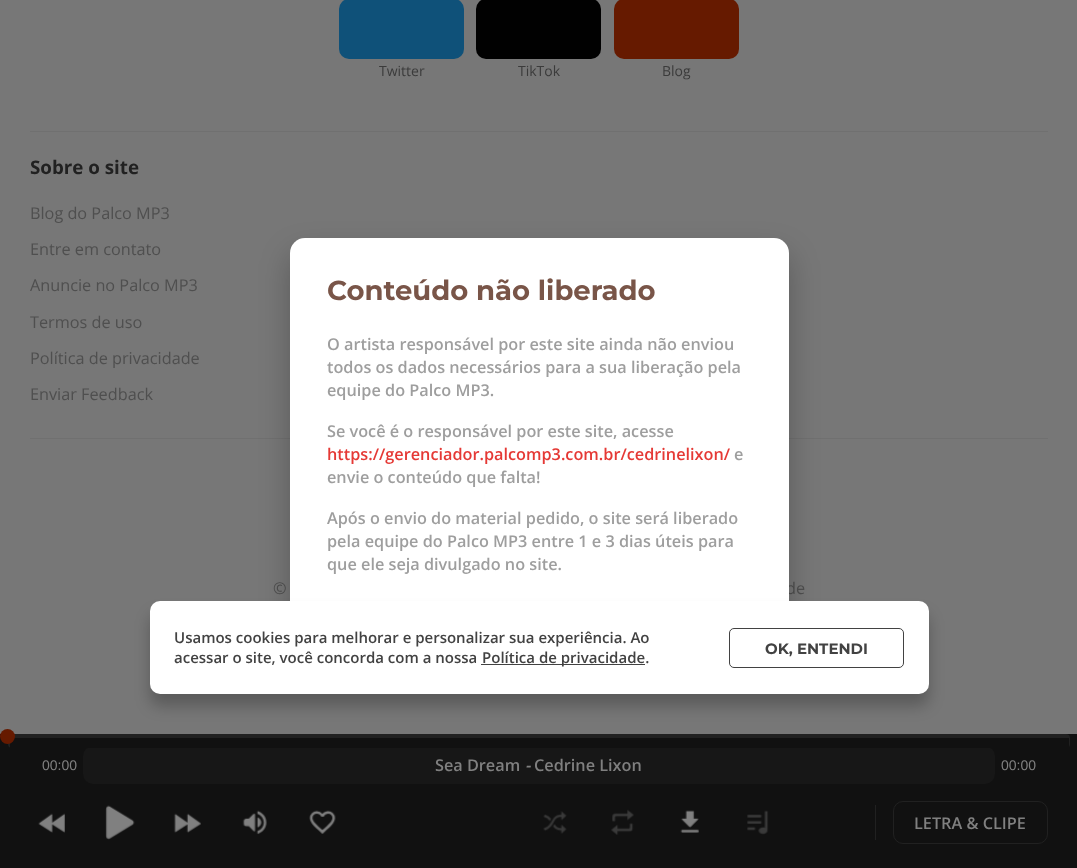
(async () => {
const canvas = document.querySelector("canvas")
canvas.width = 1077
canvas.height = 868
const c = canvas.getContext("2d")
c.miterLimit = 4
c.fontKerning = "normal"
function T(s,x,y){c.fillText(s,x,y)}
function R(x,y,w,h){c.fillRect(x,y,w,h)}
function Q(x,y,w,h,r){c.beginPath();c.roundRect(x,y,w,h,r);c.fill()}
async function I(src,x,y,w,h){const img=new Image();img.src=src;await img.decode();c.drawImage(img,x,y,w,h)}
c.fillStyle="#777"
R(0,0,1077,868)
c.fillStyle="#0f5179"
Q(339,-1,125,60,10)
c.font="14px Open Sans"
c.fillStyle="#3b3b3b"
T("Twitter",379,76)
c.fillStyle="#010101"
Q(476,-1,125,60,10)
c.fillStyle="#3b3b3b"
T("TikTok",518,76)
c.fillStyle="#661a00"
Q(614,-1,125,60,10)
c.fillStyle="#3b3b3b"
T("Blog",662,76)
c.fillStyle="#707070"
R(30,131,1018,1)
c.font="bold 18.75px Open Sans"
c.fillStyle="#212121"
T("Sobre o site",30,174)
c.font="16.25px Open Sans"
c.fillStyle="#4f4f4f"
T("Blog do Palco MP3",30,219)
T("Entre em contato",30,255)
T("Anuncie no Palco MP3",30,291)
T("Termos de uso",30,328)
T("Política de privacidade",30,364)
T("Enviar Feedback",30,400)
c.fillStyle="#707070"
R(30,438,1018,1)
c.fillStyle="#4f4f4f"
T("©",273,594)
T("de",786,594)
c.fillStyle="#0000003d"
c.filter="blur(15px)"
c.beginPath()
c.roundRect(290,253,499,393,15)
c.fill()
c.filter="none"
c.fillStyle="#fff"
Q(290,238,499,393,15)
c.font="bold 27.5px Montserrat"
c.fillStyle="#795548"
T("Conteúdo não liberado",327,300)
c.font="600 16.25px Open Sans"
c.fillStyle="#9e9e9e"
T("O artista responsável por este site ainda não enviou",327,350)
T("todos os dados necessários para a sua liberação pela",327,373)
T("equipe do Palco MP3.",327,396)
T("Se você é o responsável por este site, acesse",327,437)
c.fillStyle="#e53935"
T("https://gerenciador.palcomp3.com.br/cedrinelixon/",327,460)
c.fillStyle="#9e9e9e"
T("e",734,460)
T("envie o conteúdo que falta!",327,483)
T("Após o envio do material pedido, o site será liberado",327,524)
T("pela equipe do Palco MP3 entre 1 e 3 dias úteis para",327,547)
T("que ele seja divulgado no site.",327,570)
c.fillStyle="#0000003d"
c.filter="blur(7.5px)"
c.beginPath()
c.roundRect(150,614,779,92,10)
c.fill()
c.filter="none"
c.fillStyle="#fff"
Q(150,601,779,93,10)
c.font="600 15px Open Sans"
c.fillStyle="#424242"
T("Usamos cookies para melhorar e personalizar sua experiência. Ao",174,643)
T("acessar o site, você concorda com a nossa",174,663)
R(481,664,164,1)
T("Política de privacidade.",482,663)
c.beginPath()
c.roundRect(729.5,628.5,174,39,4.5)
c.strokeStyle="#424242"
c.stroke()
c.font="bold 15px Montserrat"
T("OK, ENTENDI",765,654)
c.fillStyle="#111"
R(0,734,1077,134)
c.fillStyle="#171717"
Q(83,746,912,38,10)
c.font="600 16.25px Open Sans"
c.fillStyle="#808080"
T("Sea Dream",435,771)
c.font="italic 600 16.25px Open Sans"
T("-",525,771)
c.font="600 16.25px Open Sans"
T("Cedrine Lixon",534,771)
c.fillStyle="#212121"
Q(8,734,1062,14,4)
c.fillStyle="#111"
R(10,738,1059,10)
c.fillStyle="#661a00"
c.beginPath()
c.arc(7.5,736.5,7.5,0,7)
c.fill()
c.font="14px Liberation Sans"
c.fillStyle="#808080"
T("00:00",42,770)
T("00:00",1001,770)
await I("1.png",38,813,27,20)
await I("2.png",105,805,30,35)
await I("3.png",173,813,28,20)
await I("4.png",242,810,25,25)
await I("5.png",309,810,27,24)
await I("6.png",543,811,24,23)
await I("7.png",611,809,23,26)
await I("8.png",680,810,19,23)
await I("9.png",747,810,22,25)
c.fillStyle="#212121"
R(875,805,1,35)
c.beginPath()
c.roundRect(893.5,801.5,154,42,9.5)
c.strokeStyle="#212121"
c.stroke()
c.font="600 16.25px Open Sans"
c.fillStyle="#808080"
T("LETRA & CLIPE",914,829)
})()
